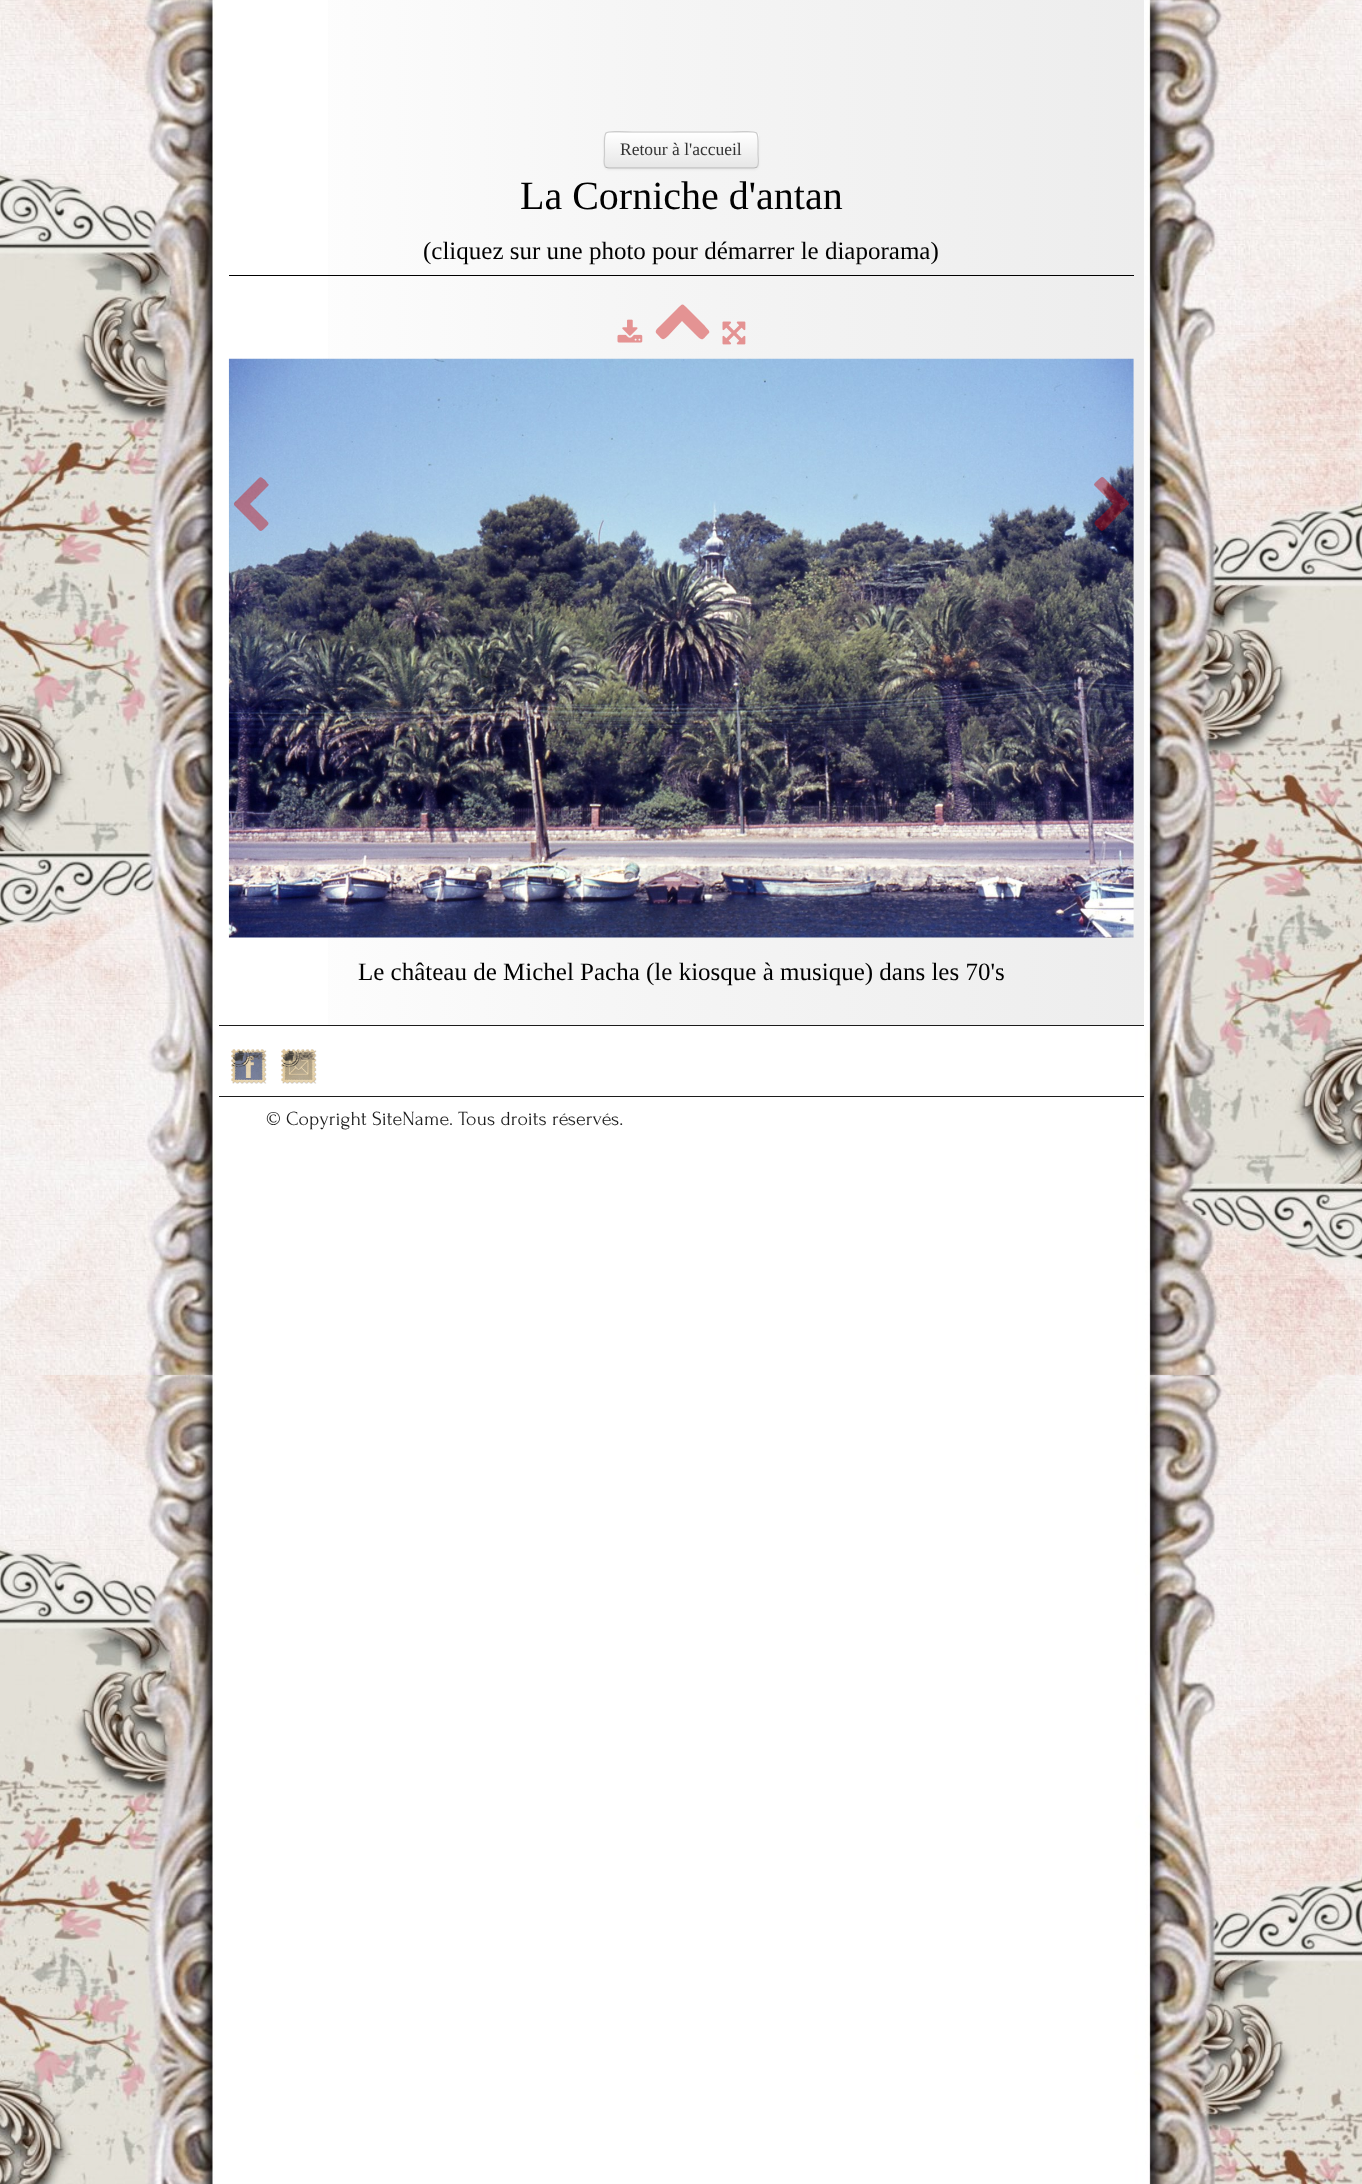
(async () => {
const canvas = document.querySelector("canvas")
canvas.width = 1362
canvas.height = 2184
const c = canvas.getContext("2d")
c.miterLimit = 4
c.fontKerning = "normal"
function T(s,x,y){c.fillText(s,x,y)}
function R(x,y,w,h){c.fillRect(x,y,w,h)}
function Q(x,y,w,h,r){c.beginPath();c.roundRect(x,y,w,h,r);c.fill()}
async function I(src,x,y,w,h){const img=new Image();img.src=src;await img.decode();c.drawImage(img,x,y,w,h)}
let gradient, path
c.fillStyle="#fff"
R(0,0,1362,2184)
await I("1.png",0,0,1362,2184)
gradient = c.createLinearGradient(219,573,1144,573)
gradient.addColorStop(0,"#fff")
gradient.addColorStop(.47,"#f5f5f5")
gradient.addColorStop(1,"#ededed")
c.fillStyle = gradient
R(328,0,816,1025)
c.fillStyle="#000"
R(229,275,905,1)
c.fillStyle="#0000000d"
c.filter="blur(1px)"
c.beginPath()
c.roundRect(604,133,155,37,5)
c.fill()
c.filter="none"
c.fillStyle="#f5f5f5"
Q(604,131,155,38,5)
c.save()
c.beginPath()
c.roundRect(604,131,155,38,5)
c.clip()
gradient = c.createLinearGradient(681,133,681,168)
gradient.addColorStop(0,"#fff")
gradient.addColorStop(1,"#e6e6e6")
c.fillStyle = gradient
R(604,133,155,35)
c.restore()
path = new Path2D("M757 167c-1 .5-2 1-3 1h-145c-1.5 0-2.5-.5-3.5-1")
c.strokeStyle="#b3b3b3"
c.lineWidth=1.2
c.stroke(path)
path = new Path2D("M605.5 167c-2.5-3-1-9.5-1-12.5c0-28.5-4-22.5 28.5-22.5h96.5c32.5 0 28.5-6 28.5 22.5c0 3 1.5 9.5-1 12.5")
c.strokeStyle="#ccc"
c.stroke(path)
c.font="17.5px Liberation Serif"
c.fillStyle="#333"
T("Retour à l'accueil",620,155)
c.font="40px Liberation Serif"
c.fillStyle="#000"
T("La Corniche d'antan",520,209)
c.font="25px Liberation Serif"
T("(cliquez sur une photo pour démarrer le diaporama)",423,259)
await I("2.png",617,319,26,24)
c.fillStyle="#e49393"
path = new Path2D("M709 333c-6 6-6 9-12 3l-15-15l-14 15c-6 5-5 4-11-2c-3-3 0-5 3-8l17-17c6-6 5-6 11 0l17 17c0 1 6 5 4 7z")
c.fill(path)
await I("3.png",722,321,24,24)
await I("4.png",228,358,906,580)
c.fillStyle="#cc000066"
path = new Path2D("M268 486l-18 18l15 15c4 4 5 4 1 8c-6 6-5 5-11-1l-21-21v-2l25-25c2-2 4 1 6 2l3 4c1 0 1 1 0 2z")
c.fill(path)
path = new Path2D("M1128 505l-20 21c-7 7-6 6-12 0c-4-4 1-6 5-10l12-12l-19-19c0-2 2-3 3-4c6-6 5-5 11 1l16 16c1 1 6 4 5 7z")
c.fill(path)
c.fillStyle="#000"
T("Le château de Michel Pacha (le kiosque à musique) dans les 70's",358,980)
c.fillStyle="#1c1c1c"
R(219,1025,925,1)
await I("5.png",231,1049,36,35)
await I("6.png",281,1049,36,35)
R(219,1096,925,1)
c.font="20px Forum"
T("© Copyright SiteName. Tous droits réservés.",266,1125)
})()
